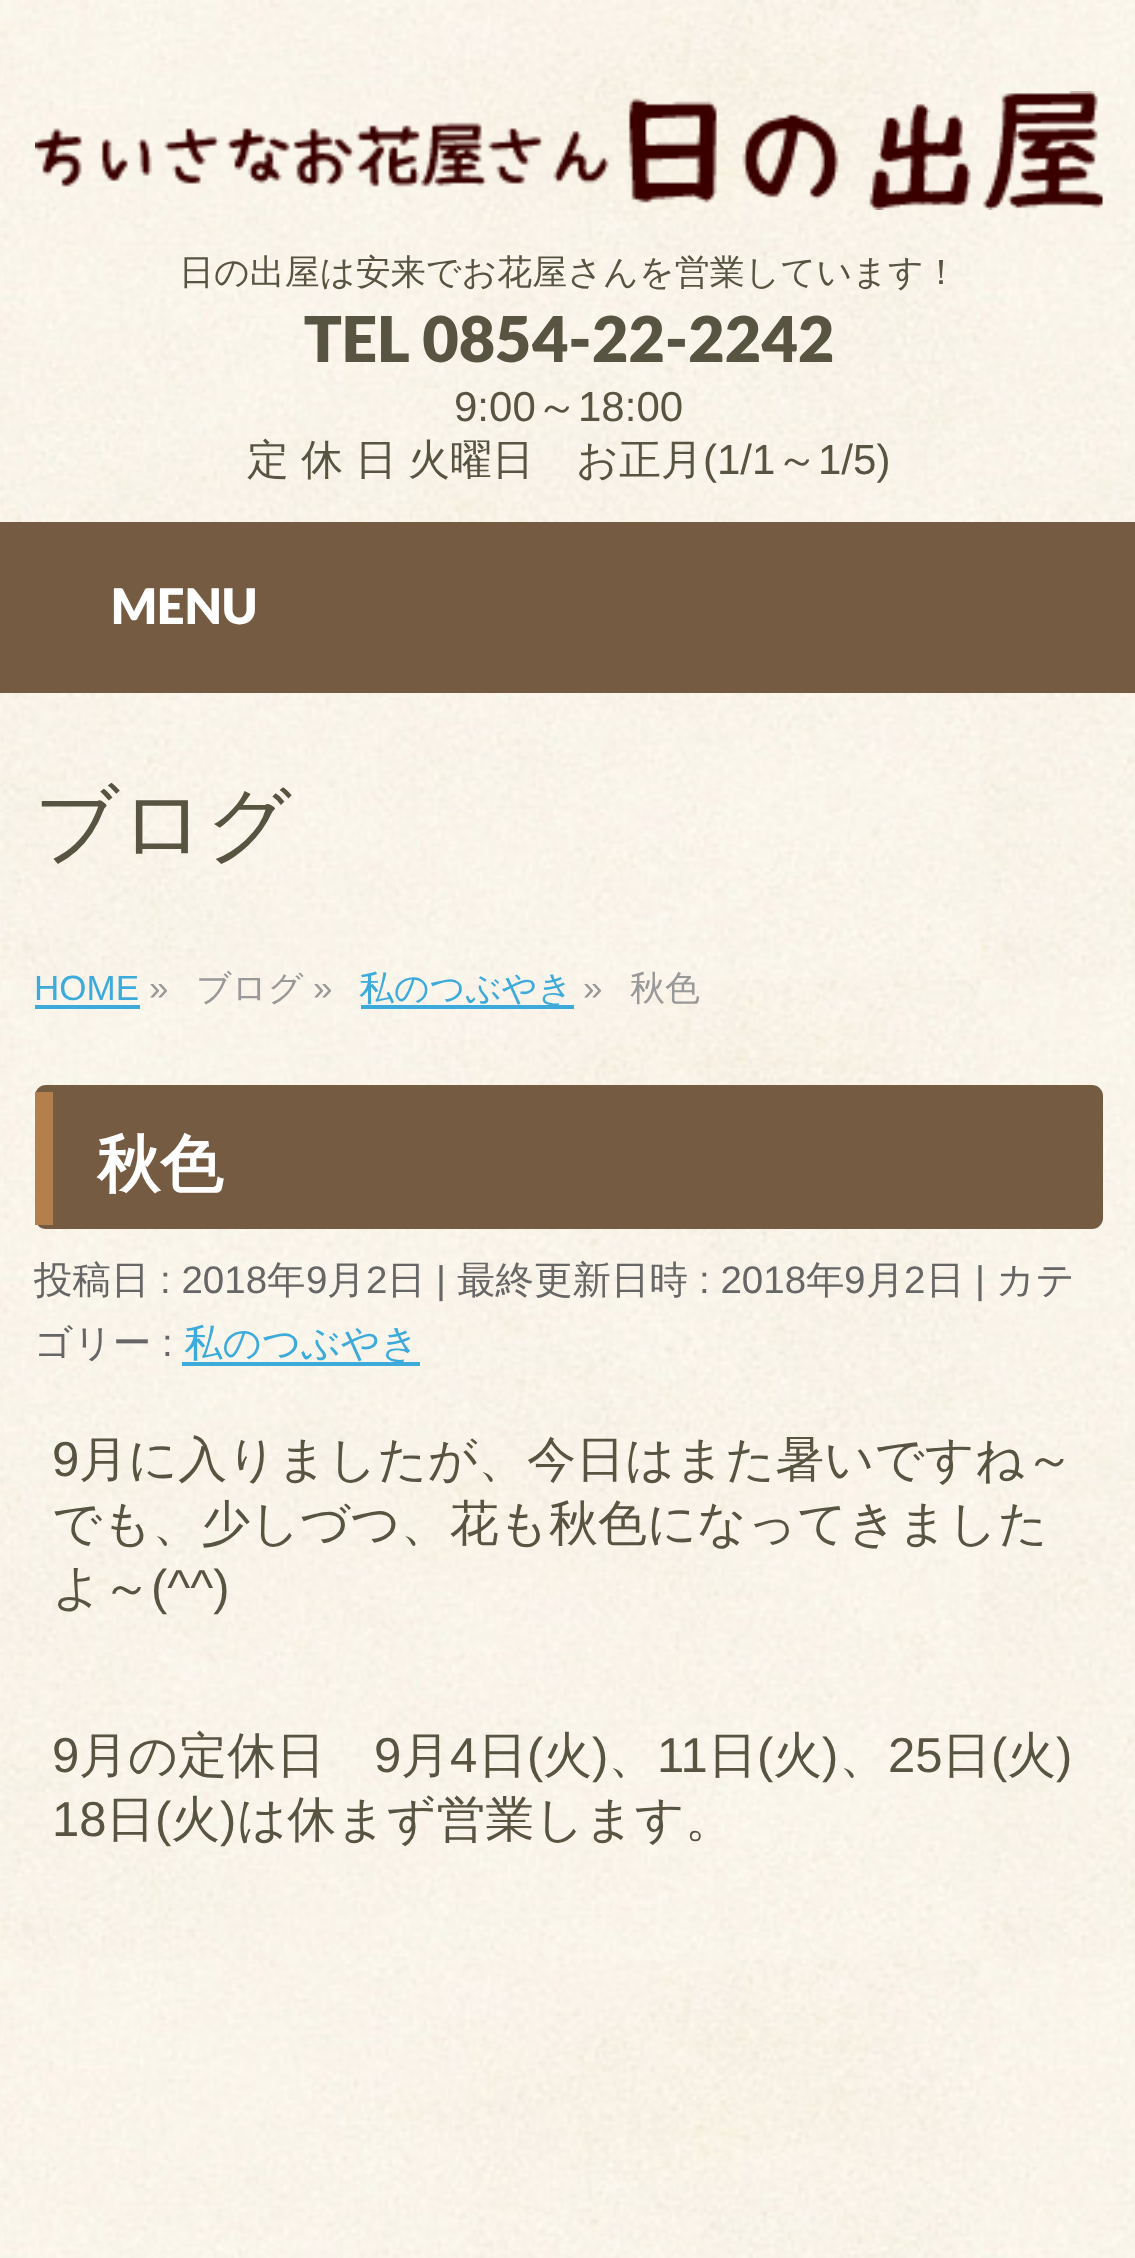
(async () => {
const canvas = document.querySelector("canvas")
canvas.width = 1135
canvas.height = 2258
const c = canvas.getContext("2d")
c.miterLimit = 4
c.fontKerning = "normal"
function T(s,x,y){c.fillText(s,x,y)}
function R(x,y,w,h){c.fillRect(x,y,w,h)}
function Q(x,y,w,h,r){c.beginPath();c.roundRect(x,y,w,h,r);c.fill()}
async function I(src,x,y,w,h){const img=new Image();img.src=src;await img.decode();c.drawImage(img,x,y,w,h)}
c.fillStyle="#fff"
R(0,0,1135,2258)
await I("1.png",0,0,1135,2258)
await I("2.png",5,0,981,1)
await I("3.png",35,91,1068,119)
c.font="500 35px WenQuanYi Zen Hei"
c.fillStyle="#575442"
T("日の出屋は安来でお花屋さんを営業しています！",179,284)
c.font="900 63px Lato"
T("TEL 0854-22-2242",304,362)
c.font="42px Liberation Sans"
T("9:00",454,421)
c.font="500 42px WenQuanYi Zen Hei"
T("～",536,421)
c.font="42px Liberation Sans"
T("18:00",578,421)
c.font="500 42px WenQuanYi Zen Hei"
T("定",247,474)
T("休",301,474)
T("日",355,474)
T("火曜日　お正月",408,474)
c.font="42px Liberation Sans"
T("(1/1",703,474)
c.font="500 42px WenQuanYi Zen Hei"
T("～",776,474)
c.font="42px Liberation Sans"
T("1/5)",818,474)
c.fillStyle="#755b42"
R(0,522,1135,171)
c.font="900 49px Lato"
c.fillStyle="#fff"
T("MENU",111,624)
c.font="500 84px WenQuanYi Zen Hei"
c.fillStyle="#575442"
T("ブログ",34,853)
c.font="35px Liberation Sans"
c.fillStyle="#3caada"
T("HOME",34,1000)
R(35,1005,105,4)
c.fillStyle="#999"
T("»",149,1000)
c.font="500 35px WenQuanYi Zen Hei"
T("ブログ",196,1000)
c.font="35px Liberation Sans"
T("»",313,1000)
c.fillStyle="#3caada"
R(361,1005,213,4)
c.font="500 35px WenQuanYi Zen Hei"
T("私のつぶやき",359,1000)
c.font="35px Liberation Sans"
c.fillStyle="#999"
T("»",583,1000)
c.font="500 35px WenQuanYi Zen Hei"
T("秋色",630,1000)
c.fillStyle="#755b42"
Q(35,1085,1068,144,11)
c.fillStyle="#b37f4d"
R(35,1092,18,133)
c.font="bold 63px WenQuanYi Zen Hei"
c.fillStyle="#fff"
T("秋色",97,1186)
c.font="500 38.5px WenQuanYi Zen Hei"
c.fillStyle="#666"
T("投稿日",34,1293)
c.font="38.5px Liberation Sans"
T(": 2018",160,1293)
c.font="500 38.5px WenQuanYi Zen Hei"
T("年",267,1293)
c.font="38.5px Liberation Sans"
T("9",306,1293)
c.font="500 38.5px WenQuanYi Zen Hei"
T("月",327,1293)
c.font="38.5px Liberation Sans"
T("2",366,1293)
c.font="500 38.5px WenQuanYi Zen Hei"
T("日",387,1293)
c.font="38.5px Liberation Sans"
T("|",436,1293)
c.font="500 38.5px WenQuanYi Zen Hei"
T("最終更新日時",457,1293)
c.font="38.5px Liberation Sans"
T(": 2018",699,1293)
c.font="500 38.5px WenQuanYi Zen Hei"
T("年",806,1293)
c.font="38.5px Liberation Sans"
T("9",844,1293)
c.font="500 38.5px WenQuanYi Zen Hei"
T("月",866,1293)
c.font="38.5px Liberation Sans"
T("2",904,1293)
c.font="500 38.5px WenQuanYi Zen Hei"
T("日",926,1293)
c.font="38.5px Liberation Sans"
T("|",975,1293)
c.font="500 38.5px WenQuanYi Zen Hei"
T("カテ",996,1293)
T("ゴリー",34,1356)
c.font="38.5px Liberation Sans"
T(":",162,1356)
c.fillStyle="#3caada"
R(182,1362,238,4)
c.font="500 38.5px WenQuanYi Zen Hei"
T("私のつぶやき",184,1356)
c.font="49px Liberation Sans"
c.fillStyle="#575442"
T("9",52,1476)
c.font="500 49px WenQuanYi Zen Hei"
T("月に入りましたが、今日はまた暑いですね～",79,1476)
T("でも、少しづつ、花も秋色になってきました",52,1540)
T("よ～",52,1604)
c.font="49px Liberation Sans"
T("(^^)",151,1604)
T("9",52,1772)
c.font="500 49px WenQuanYi Zen Hei"
T("月の定休日",79,1772)
c.font="49px Liberation Sans"
T("9",374,1772)
c.font="500 49px WenQuanYi Zen Hei"
T("月",401,1772)
c.font="49px Liberation Sans"
T("4",450,1772)
c.font="500 49px WenQuanYi Zen Hei"
T("日",478,1772)
c.font="49px Liberation Sans"
T("(",527,1772)
c.font="500 49px WenQuanYi Zen Hei"
T("火",543,1772)
c.font="49px Liberation Sans"
T(")",592,1772)
T("11",657,1772)
c.font="500 49px WenQuanYi Zen Hei"
T("日",708,1772)
c.font="49px Liberation Sans"
T("(",757,1772)
c.font="500 49px WenQuanYi Zen Hei"
T("火",773,1772)
c.font="49px Liberation Sans"
T(")",822,1772)
T("25",888,1772)
c.font="500 49px WenQuanYi Zen Hei"
T("日",942,1772)
c.font="49px Liberation Sans"
T("(",991,1772)
c.font="500 49px WenQuanYi Zen Hei"
T("火",1007,1772)
c.font="49px Liberation Sans"
T(")",1056,1772)
c.font="500 49px WenQuanYi Zen Hei"
T("、",608,1772)
T("、",839,1772)
c.font="49px Liberation Sans"
T("18",52,1836)
c.font="500 49px WenQuanYi Zen Hei"
T("日",106,1836)
c.font="49px Liberation Sans"
T("(",155,1836)
c.font="500 49px WenQuanYi Zen Hei"
T("火",171,1836)
c.font="49px Liberation Sans"
T(")",220,1836)
c.font="500 49px WenQuanYi Zen Hei"
T("は休まず営業します。",237,1836)
})()
